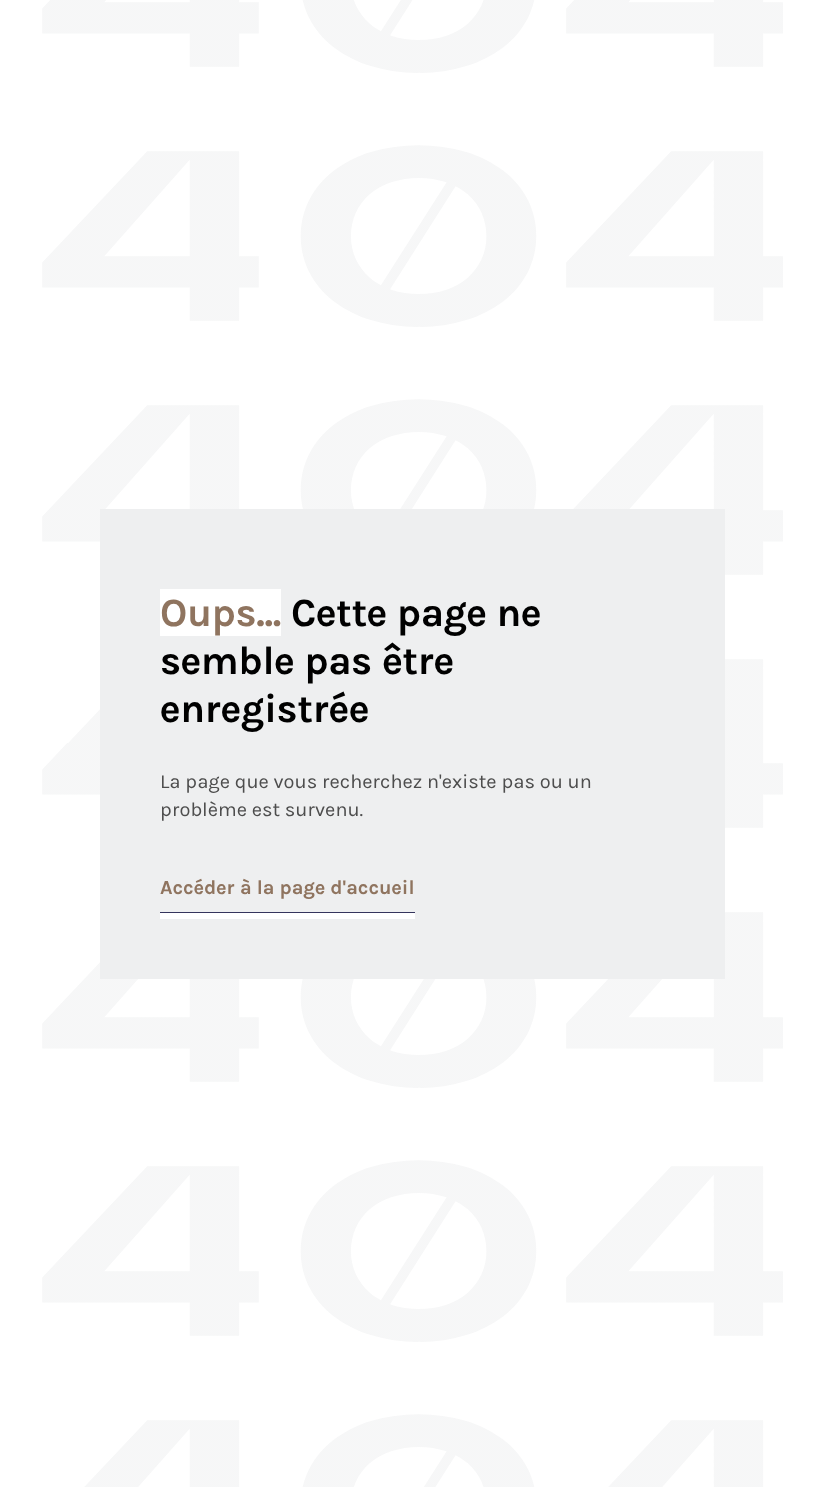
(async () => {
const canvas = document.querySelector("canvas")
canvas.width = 825
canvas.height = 1487
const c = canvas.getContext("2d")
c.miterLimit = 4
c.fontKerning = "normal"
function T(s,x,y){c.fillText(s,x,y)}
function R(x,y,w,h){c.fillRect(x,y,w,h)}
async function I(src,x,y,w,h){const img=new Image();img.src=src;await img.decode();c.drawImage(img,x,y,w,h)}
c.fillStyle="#fff"
R(0,0,825,1487)
await I("1.png",42,0,741,1487)
c.fillStyle="#eeeff0"
R(100,509,625,470)
c.fillStyle="#fff"
R(160,589,121,47)
c.letterSpacing="-0.4px"
c.font="bold 40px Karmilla"
c.fillStyle="#8f745f"
T("Oups...",160,626)
c.fillStyle="#000"
T("Cette page ne",291,626)
T("semble pas être",160,674)
T("enregistrée",160,722)
c.letterSpacing="0px"
c.font="20px Karmilla"
c.fillStyle="#4d4d4d"
T("La page que vous recherchez n'existe pas ou un",160,788)
T("problème est survenu.",160,816)
c.font="bold 20px Karmilla"
c.fillStyle="#8f745f"
T("Accéder à la page d'accueil",160,894)
c.fillStyle="#34345d"
R(160,912,255,1)
c.fillStyle="#fff"
R(160,913,255,6)
})()
